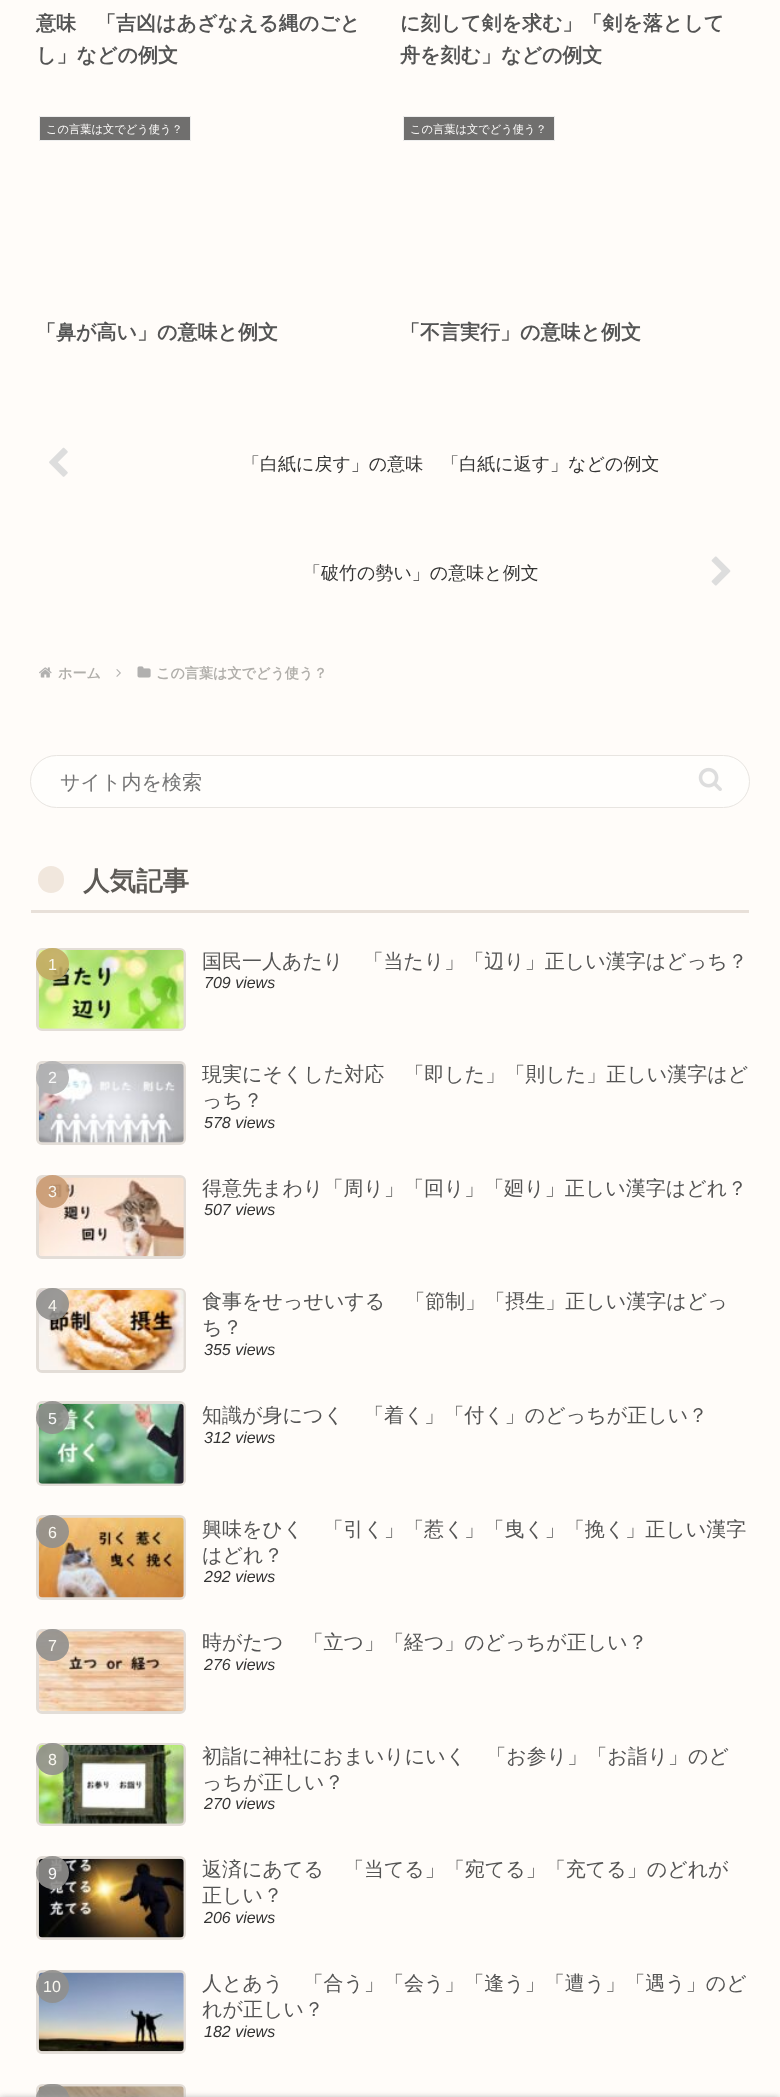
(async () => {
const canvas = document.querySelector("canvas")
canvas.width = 780
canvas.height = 2097
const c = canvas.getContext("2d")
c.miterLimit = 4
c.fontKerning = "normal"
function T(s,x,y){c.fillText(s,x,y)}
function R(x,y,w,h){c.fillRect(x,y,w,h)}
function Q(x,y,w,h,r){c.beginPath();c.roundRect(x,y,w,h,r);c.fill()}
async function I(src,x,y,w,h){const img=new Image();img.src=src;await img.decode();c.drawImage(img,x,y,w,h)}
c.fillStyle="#fffcf9"
R(0,0,780,2097)
c.font="bold 20px WenQuanYi Zen Hei"
c.fillStyle="#545454"
T("意味　「吉凶はあざなえる縄のごと",36,30)
T("し」などの例文",36,62)
T("に刻して剣を求む」「剣を落として",400,30)
T("舟を刻む」などの例文",400,62)
c.fillStyle="#706f6e"
c.beginPath()
c.rect(39.5,116.5,151,24)
c.fill()
c.strokeStyle="#eee"
c.stroke()
c.font="500 11.25px WenQuanYi Zen Hei"
c.fillStyle="#fefdfc"
T("この言葉は文でどう使う？",46,133)
c.font="bold 20px WenQuanYi Zen Hei"
c.fillStyle="#545454"
T("「鼻が高い」の意味と例文",36,339)
c.fillStyle="#706f6e"
c.beginPath()
c.rect(403.5,116.5,151,24)
c.fill()
c.stroke()
c.font="500 11.25px WenQuanYi Zen Hei"
c.fillStyle="#fefdfc"
T("この言葉は文でどう使う？",410,133)
c.font="bold 20px WenQuanYi Zen Hei"
c.fillStyle="#545454"
T("「不言実行」の意味と例文",400,339)
await I("1.png",49,447,19,30)
c.font="500 18px WenQuanYi Zen Hei"
c.fillStyle="#333"
T("「白紙に戻す」の意味　「白紙に返す」などの例文",242,470)
T("「破竹の勢い」の意味と例文",303,579)
await I("2.png",711,556,20,30)
await I("3.png",39,667,13,11)
c.font="bold 14.1px WenQuanYi Zen Hei"
c.fillStyle="#b1afab"
T("ホーム",58,678)
await I("4.png",116,669,5,8)
await I("5.png",137,666,14,12)
T("この言葉は文でどう使う？",156,678)
c.fillStyle="#fffefc"
c.beginPath()
c.roundRect(30.5,755.5,719,52,26)
c.fill()
c.strokeStyle="#e8e5e1"
c.stroke()
c.font="500 20px WenQuanYi Zen Hei"
c.fillStyle="#757575"
T("サイト内を検索",60,789)
await I("6.png",698,767,24,24)
c.fillStyle="#e8e0d9"
R(31,910,718,3)
c.fillStyle="#f1e7dd"
Q(38,866,26,27,13)
c.font="bold 26.5px WenQuanYi Zen Hei"
c.fillStyle="#5d5a56"
T("人気記事",83,890)
c.beginPath()
c.roundRect(37.5,949.5,147,80,4.5)
c.strokeStyle="#e3ddd7"
c.lineWidth=3
c.stroke()
await I("7.png",38,950,146,79)
c.fillStyle="#c2ab62e6"
Q(36,948,33,32,16)
c.font="16px Liberation Sans"
c.fillStyle="#f9f7f0"
T("1",48,970)
c.font="500 20px WenQuanYi Zen Hei"
c.fillStyle="#545454"
T("国民一人あたり　「当たり」「辺り」正しい漢字はどっち？",202,968)
c.font="italic 16px Liberation Sans"
c.fillStyle="#333"
T("709 views",204,988)
c.beginPath()
c.roundRect(37.5,1062.5,147,81,4.5)
c.stroke()
await I("8.png",38,1064,146,79)
c.fillStyle="#b1b1b3e6"
c.beginPath()
c.arc(52.5,1077.5,16.5,0,7)
c.fill()
c.font="16px Liberation Sans"
c.fillStyle="#f8f8f8"
T("2",48,1083)
c.font="500 20px WenQuanYi Zen Hei"
c.fillStyle="#545454"
T("現実にそくした対応　「即した」「則した」正しい漢字はど",202,1081)
T("っち？",202,1107)
c.font="italic 16px Liberation Sans"
c.fillStyle="#333"
T("578 views",204,1128)
c.beginPath()
c.roundRect(37.5,1176.5,147,81,4.5)
c.stroke()
await I("9.png",39,1177,145,80)
c.fillStyle="#c99a72e6"
c.beginPath()
c.arc(52.5,1191.5,16.5,0,7)
c.fill()
c.font="16px Liberation Sans"
c.fillStyle="#f9f7f0"
T("3",48,1197)
c.font="500 20px WenQuanYi Zen Hei"
c.fillStyle="#545454"
T("得意先まわり「周り」「回り」「廻り」正しい漢字はどれ？",202,1195)
c.font="italic 16px Liberation Sans"
c.fillStyle="#333"
T("507 views",204,1215)
c.beginPath()
c.roundRect(37.5,1289.5,147,82,4.5)
c.stroke()
await I("10.png",39,1290,145,80)
c.fillStyle="#908f8de6"
Q(36,1288,33,32,16)
c.font="16px Liberation Sans"
c.fillStyle="#f9f7f0"
T("4",48,1311)
c.font="500 20px WenQuanYi Zen Hei"
c.fillStyle="#545454"
T("食事をせっせいする　「節制」「摂生」正しい漢字はどっ",202,1308)
T("ち？",202,1334)
c.font="italic 16px Liberation Sans"
c.fillStyle="#333"
T("355 views",204,1355)
c.beginPath()
c.roundRect(37.5,1402.5,147,82,4.5)
c.stroke()
await I("11.png",38,1403,146,81)
c.fillStyle="#908f8de6"
c.beginPath()
c.arc(52.5,1417.5,16.5,0,7)
c.fill()
c.font="16px Liberation Sans"
c.fillStyle="#f8f8f8"
T("5",48,1424)
c.font="500 20px WenQuanYi Zen Hei"
c.fillStyle="#545454"
T("知識が身につく　「着く」「付く」のどっちが正しい？",202,1422)
c.font="italic 16px Liberation Sans"
c.fillStyle="#333"
T("312 views",204,1443)
c.beginPath()
c.roundRect(37.5,1516.5,147,82,4.5)
c.stroke()
await I("12.png",38,1517,146,81)
c.fillStyle="#908f8de6"
c.beginPath()
c.arc(52.5,1531.5,16.5,0,7)
c.fill()
c.font="16px Liberation Sans"
c.fillStyle="#f9f7f0"
T("6",48,1538)
c.font="500 20px WenQuanYi Zen Hei"
c.fillStyle="#545454"
T("興味をひく　「引く」「惹く」「曳く」「挽く」正しい漢字",202,1536)
T("はどれ？",202,1562)
c.font="italic 16px Liberation Sans"
c.fillStyle="#333"
T("292 views",204,1582)
c.beginPath()
c.roundRect(37.5,1630.5,147,82,4.5)
c.stroke()
await I("13.png",39,1631,145,81)
c.fillStyle="#908f8de6"
Q(36,1629,33,32,16)
c.font="16px Liberation Sans"
c.fillStyle="#f9f7f0"
T("7",48,1651)
c.font="500 20px WenQuanYi Zen Hei"
c.fillStyle="#545454"
T("時がたつ　「立つ」「経つ」のどっちが正しい？",202,1649)
c.font="italic 16px Liberation Sans"
c.fillStyle="#333"
T("276 views",204,1670)
c.beginPath()
c.roundRect(37.5,1744.5,147,80,4.5)
c.stroke()
await I("14.png",38,1745,146,79)
c.fillStyle="#908f8de6"
Q(36,1743,33,32,16)
c.font="16px Liberation Sans"
c.fillStyle="#f9f7f0"
T("8",48,1765)
c.font="500 20px WenQuanYi Zen Hei"
c.fillStyle="#545454"
T("初詣に神社におまいりにいく　「お参り」「お詣り」のど",202,1763)
T("っちが正しい？",202,1789)
c.font="italic 16px Liberation Sans"
c.fillStyle="#333"
T("270 views",204,1809)
c.beginPath()
c.roundRect(37.5,1857.5,147,81,4.5)
c.stroke()
await I("15.png",38,1858,146,80)
c.fillStyle="#908f8de6"
c.beginPath()
c.arc(52.5,1872.5,16.5,0,7)
c.fill()
c.font="16px Liberation Sans"
c.fillStyle="#f8f8f8"
T("9",48,1879)
c.font="500 20px WenQuanYi Zen Hei"
c.fillStyle="#545454"
T("返済にあてる　「当てる」「宛てる」「充てる」のどれが",202,1876)
T("正しい？",202,1902)
c.font="italic 16px Liberation Sans"
c.fillStyle="#333"
T("206 views",204,1923)
c.beginPath()
c.roundRect(37.5,1971.5,147,81,4.5)
c.stroke()
await I("16.png",38,1972,146,80)
c.fillStyle="#908f8de6"
c.beginPath()
c.arc(52.5,1986.5,16.5,0,7)
c.fill()
c.font="16px Liberation Sans"
c.fillStyle="#f9f7f0"
T("10",43,1992)
c.font="500 20px WenQuanYi Zen Hei"
c.fillStyle="#545454"
T("人とあう　「合う」「会う」「逢う」「遭う」「遇う」のど",202,1990)
T("れが正しい？",202,2016)
c.font="italic 16px Liberation Sans"
c.fillStyle="#333"
T("182 views",204,2037)
c.beginPath()
c.roundRect(37.5,2085.5,147,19,4.5)
c.stroke()
await I("17.png",38,2086,146,11)
c.fillStyle="#908f8de6"
Q(36,2084,33,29,16)
c.fillStyle="#a9a9a9"
c.filter="blur(3px)"
c.beginPath()
c.rect(0,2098,780,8)
c.fill()
c.filter="none"
})()
